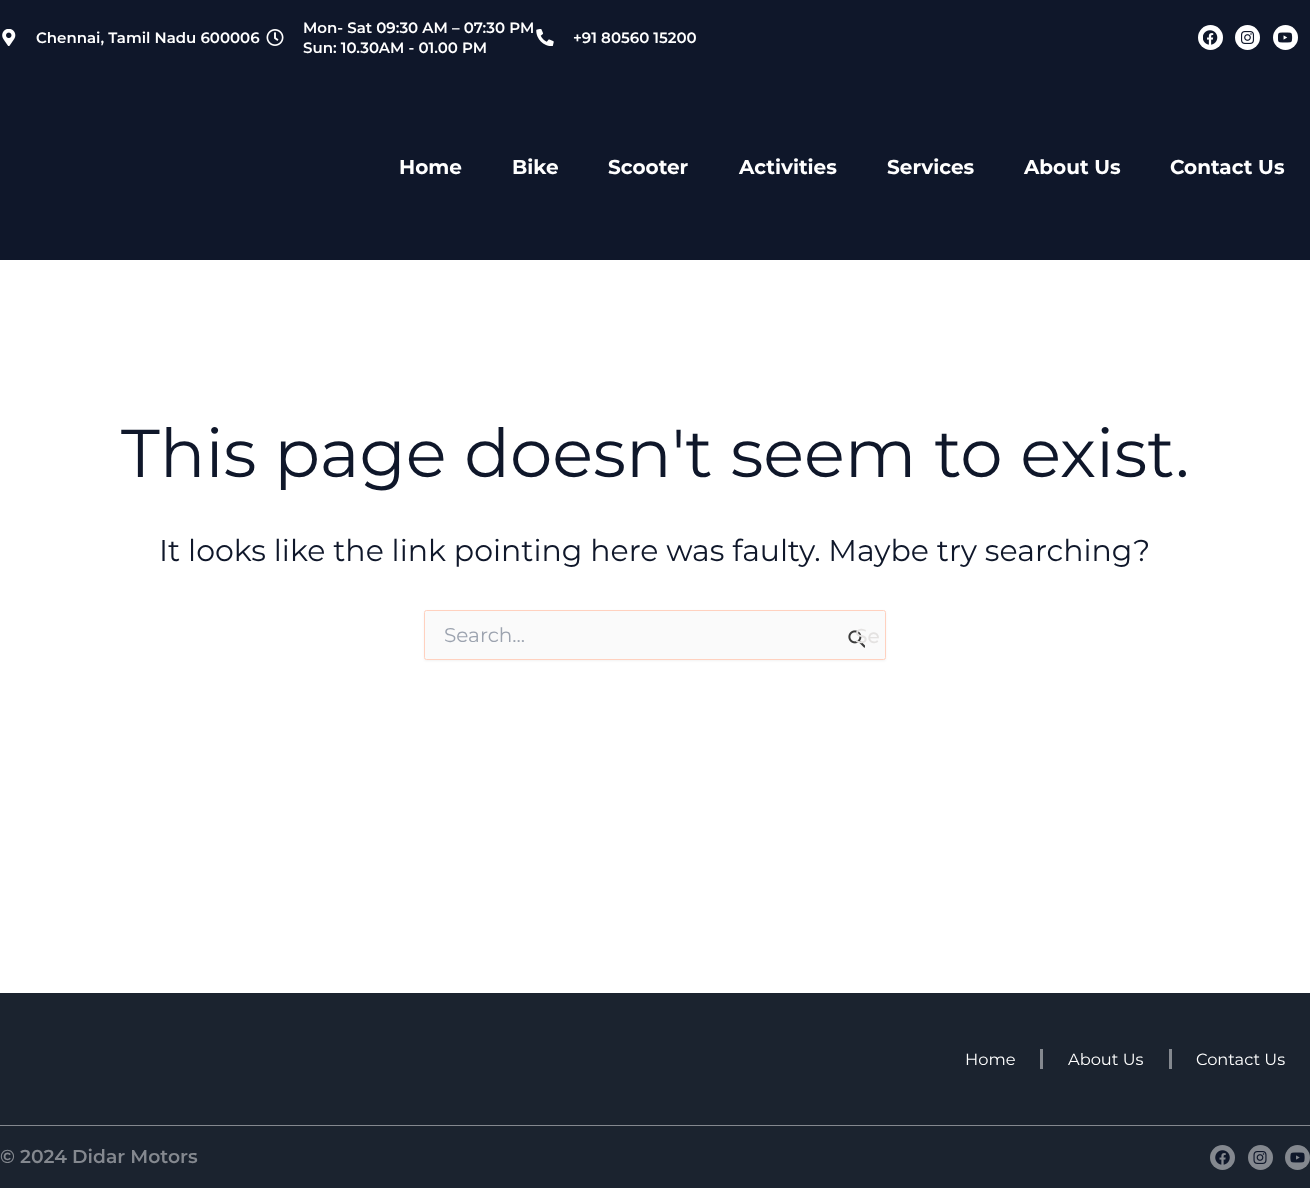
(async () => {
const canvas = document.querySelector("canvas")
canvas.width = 1310
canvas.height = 1188
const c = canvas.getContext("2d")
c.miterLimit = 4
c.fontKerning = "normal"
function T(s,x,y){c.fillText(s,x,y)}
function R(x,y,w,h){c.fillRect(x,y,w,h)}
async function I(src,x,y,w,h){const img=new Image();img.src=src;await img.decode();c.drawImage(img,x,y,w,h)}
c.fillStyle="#fff"
R(0,0,1310,1188)
c.fillStyle="#0f172a"
R(0,0,1310,260)
await I("1.png",2,29,14,17)
c.font="600 15px Montserrat"
c.fillStyle="#fff"
T("Chennai, Tamil Nadu 600006",36,43)
await I("2.png",266,29,18,17)
T("Mon- Sat 09:30 AM – 07:30 PM",303,33)
T("Sun: 10.30AM - 01.00 PM",303,53)
await I("3.png",536,29,18,17)
T("+91 80560 15200",573,43)
c.beginPath()
c.arc(1210.5,37.5,12.5,0,7)
c.fill()
await I("4.png",1203,30,15,15)
c.beginPath()
c.arc(1247.5,37.5,12.5,0,7)
c.fill()
await I("5.png",1241,31,14,13)
c.beginPath()
c.arc(1285.5,37.5,12.5,0,7)
c.fill()
await I("6.png",1278,32,15,11)
c.font="bold 20px Montserrat"
T("Home",399,174)
T("Bike",512,174)
T("Scooter",608,174)
T("Activities",739,174)
T("Services",887,174)
T("About Us",1024,174)
T("Contact Us",1170,174)
c.font="67.5px Montserrat"
c.fillStyle="#0f172a"
T("This page doesn't seem to exist.",121,477)
c.font="30px Montserrat"
T("It looks like the link pointing here was faulty. Maybe try searching?",159,561)
c.fillStyle="#0000000d"
c.filter="blur(1px)"
c.beginPath()
c.roundRect(424,611,462,50,2.5)
c.fill()
c.filter="none"
c.fillStyle="#fafafa"
c.beginPath()
c.roundRect(424.5,610.5,461,49,2)
c.fill()
c.strokeStyle="#ffd1bf"
c.stroke()
c.font="20px Montserrat"
c.fillStyle="#9ca3af"
T("Search...",444,642)
await I("7.png",848,630,17,18)
c.font="500 20px Montserrat"
c.fillStyle="#e4e2e1"
T("Se",855,643)
c.fillStyle="#1b232f"
R(0,993,1310,132)
c.fillStyle="#84888f"
R(0,1125,1310,1)
c.font="16.25px Montserrat"
c.fillStyle="#fff"
T("Home",965,1065)
c.fillStyle="#84888f"
R(1040,1049,3,20)
c.fillStyle="#fff"
T("About Us",1068,1065)
c.fillStyle="#84888f"
R(1169,1049,3,20)
c.fillStyle="#fff"
T("Contact Us",1196,1065)
c.fillStyle="#1b232f"
R(0,1126,1310,62)
c.font="600 18.75px Montserrat"
c.fillStyle="#84888f"
T("© 2024 Didar Motors",0,1163)
c.beginPath()
c.arc(1222.5,1157.5,12.5,0,7)
c.fill()
await I("8.png",1215,1150,15,15)
c.beginPath()
c.arc(1260.5,1157.5,12.5,0,7)
c.fill()
await I("9.png",1253,1151,14,13)
c.beginPath()
c.arc(1297.5,1157.5,12.5,0,7)
c.fill()
await I("10.png",1290,1152,15,11)
})()
